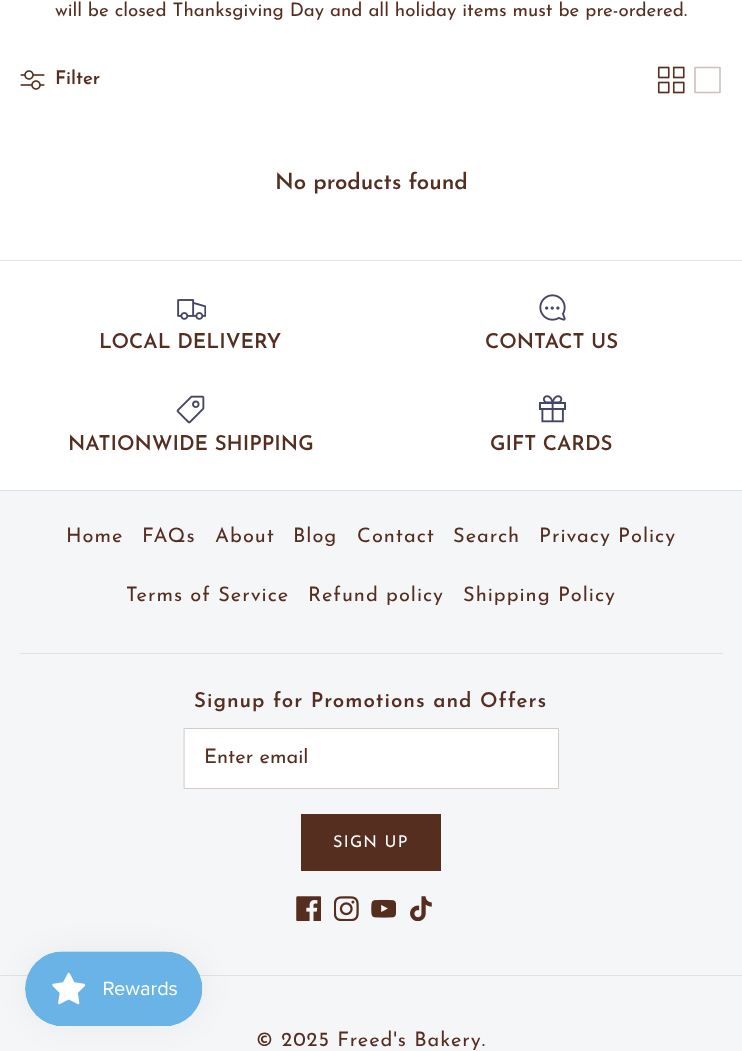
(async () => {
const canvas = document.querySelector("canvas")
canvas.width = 742
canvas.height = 1051
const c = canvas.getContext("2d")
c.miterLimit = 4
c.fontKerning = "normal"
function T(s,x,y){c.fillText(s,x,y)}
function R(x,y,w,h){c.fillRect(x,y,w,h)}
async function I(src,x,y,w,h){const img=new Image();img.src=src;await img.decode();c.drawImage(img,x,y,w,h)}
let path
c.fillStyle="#fff"
R(0,0,742,1051)
c.font="18.75px Josefin Sans"
c.fillStyle="#552e1f"
T("will be closed Thanksgiving Day and all holiday items must be pre-ordered.",55,16)
await I("1.png",20,70,25,20)
c.font="600 18.75px Josefin Sans"
T("Filter",55,84)
await I("2.png",657,66,28,28)
path = new Path2D("M695 67.5h25v25h-25v-25")
c.strokeStyle="#ccc0bc"
c.lineWidth=1.6
c.lineCap="round"
c.lineJoin="round"
c.stroke(path)
c.font="600 22.25px Josefin Sans"
T("No products found",275,189)
c.fillStyle="#dfe3e8"
R(0,260,742,1)
await I("3.png",177,299,29,21)
c.font="600 20.5px Josefin Sans"
c.fillStyle="#552e1f"
T("LOCAL DELIVERY",99,348)
await I("4.png",539,294,27,27)
T("CONTACT US",485,348)
await I("5.png",176,395,29,29)
T("NATIONWIDE SHIPPING",68,450)
await I("6.png",539,395,27,28)
T("GIFT CARDS",490,450)
c.fillStyle="#f4f6f8"
R(0,491,742,560)
c.fillStyle="#dfe3e8"
R(0,490,742,1)
R(20,653,703,1)
c.letterSpacing="1px"
c.font="20px Josefin Sans"
c.fillStyle="#552e1f"
T("Home",66,542)
T("FAQs",142,542)
T("About",215,542)
T("Blog",293,542)
T("Contact",357,542)
T("Search",453,542)
T("Privacy Policy",539,542)
T("Terms of Service",126,601)
T("Refund policy",308,601)
T("Shipping Policy",463,601)
c.font="600 20.5px Josefin Sans"
T("Signup for Promotions and Offers",194,707)
c.fillStyle="#fff"
c.beginPath()
c.rect(184.5,728.5,374,60)
c.fill()
c.strokeStyle="#d5cbc7"
c.lineWidth=1
c.lineJoin="miter"
c.stroke()
c.save()
c.beginPath()
c.rect(204,748,335,20)
c.clip()
c.letterSpacing="0px"
c.font="20px Josefin Sans"
c.fillStyle="#552e1f"
T("Enter email",204,763)
c.restore()
c.fillStyle="#552e1f"
R(301,814,140,57)
c.letterSpacing="1.25px"
c.font="16.25px Josefin Sans"
c.fillStyle="#fff"
T("SIGN UP",333,847)
await I("7.png",296,896,25,25)
await I("8.png",334,896,25,25)
await I("9.png",371,899,25,19)
await I("10.png",410,896,22,25)
c.fillStyle="#dfe3e8"
R(0,975,742,1)
c.letterSpacing="1px"
c.font="20px Josefin Sans"
c.fillStyle="#552e1f"
T("© 2025 Freed's Bakery.",256,1046)
c.fillStyle="#0000000d"
c.filter="blur(15.5px)"
c.beginPath()
c.roundRect(25,951,178,75,37.5)
c.fill()
c.filter="none"
await I("11.png",25,951,178,75)
})()
